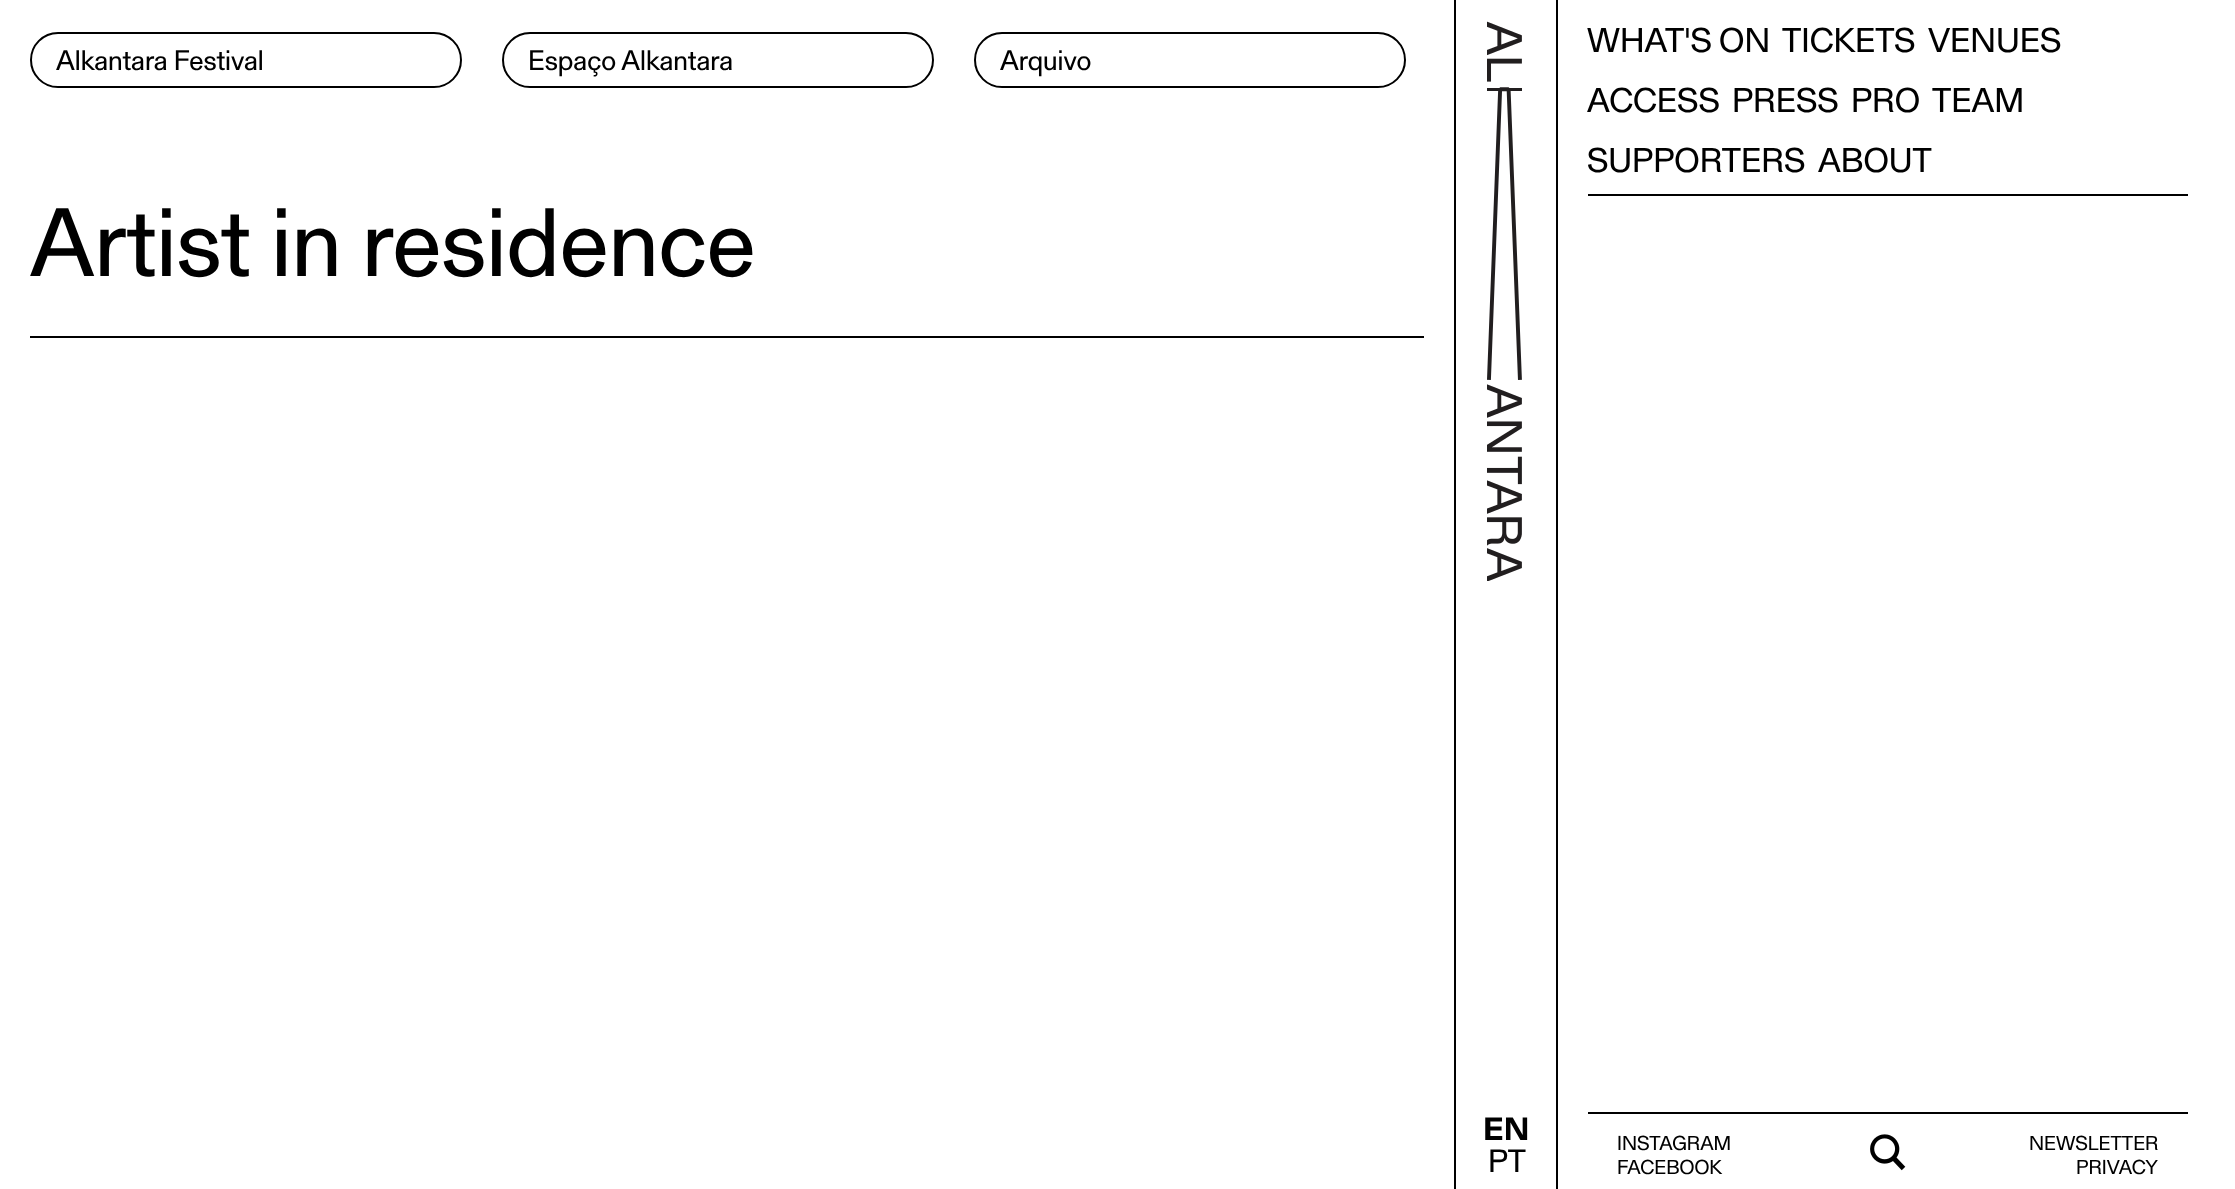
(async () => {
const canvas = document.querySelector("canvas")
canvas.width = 2235
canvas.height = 1189
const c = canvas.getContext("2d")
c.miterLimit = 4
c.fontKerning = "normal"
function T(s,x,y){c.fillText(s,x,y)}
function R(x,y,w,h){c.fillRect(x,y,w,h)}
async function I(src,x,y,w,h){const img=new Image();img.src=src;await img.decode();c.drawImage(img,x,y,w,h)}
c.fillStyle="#fff"
R(0,0,2235,1189)
c.beginPath()
c.roundRect(31,33,430,54,27)
c.strokeStyle="#000"
c.lineWidth=2
c.stroke()
c.font="28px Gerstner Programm"
c.fillStyle="#000"
T("Alkantara Festival",56,70)
c.beginPath()
c.roundRect(503,33,430,54,27)
c.stroke()
T("Espaço Alkantara",528,70)
c.beginPath()
c.roundRect(975,33,430,54,27)
c.stroke()
T("Arquivo",1000,70)
R(30,336,1394,2)
c.font="96px Gerstner Programm"
T("Artist in residence",30,276)
R(1588,194,600,2)
c.font="34px Gerstner Programm"
T("WHAT'S ON",1587,52)
T("TICKETS",1782,52)
T("VENUES",1928,52)
T("ACCESS",1587,112)
T("PRESS",1732,112)
T("PRO",1851,112)
T("TEAM",1932,112)
T("SUPPORTERS",1587,172)
T("ABOUT",1818,172)
R(1588,1112,600,2)
c.font="20px Gerstner Programm"
T("INSTAGRAM",1617,1150)
T("FACEBOOK",1617,1174)
await I("1.png",1870,1134,36,37)
T("NEWSLETTER",2029,1150)
T("PRIVACY",2076,1174)
R(1556,0,2,1189)
R(1454,0,2,1189)
await I("2.png",1487,21,35,560)
c.font="bold 32px Gerstner Programm"
T("EN",1483,1140)
c.font="32px Gerstner Programm"
T("PT",1488,1172)
})()
